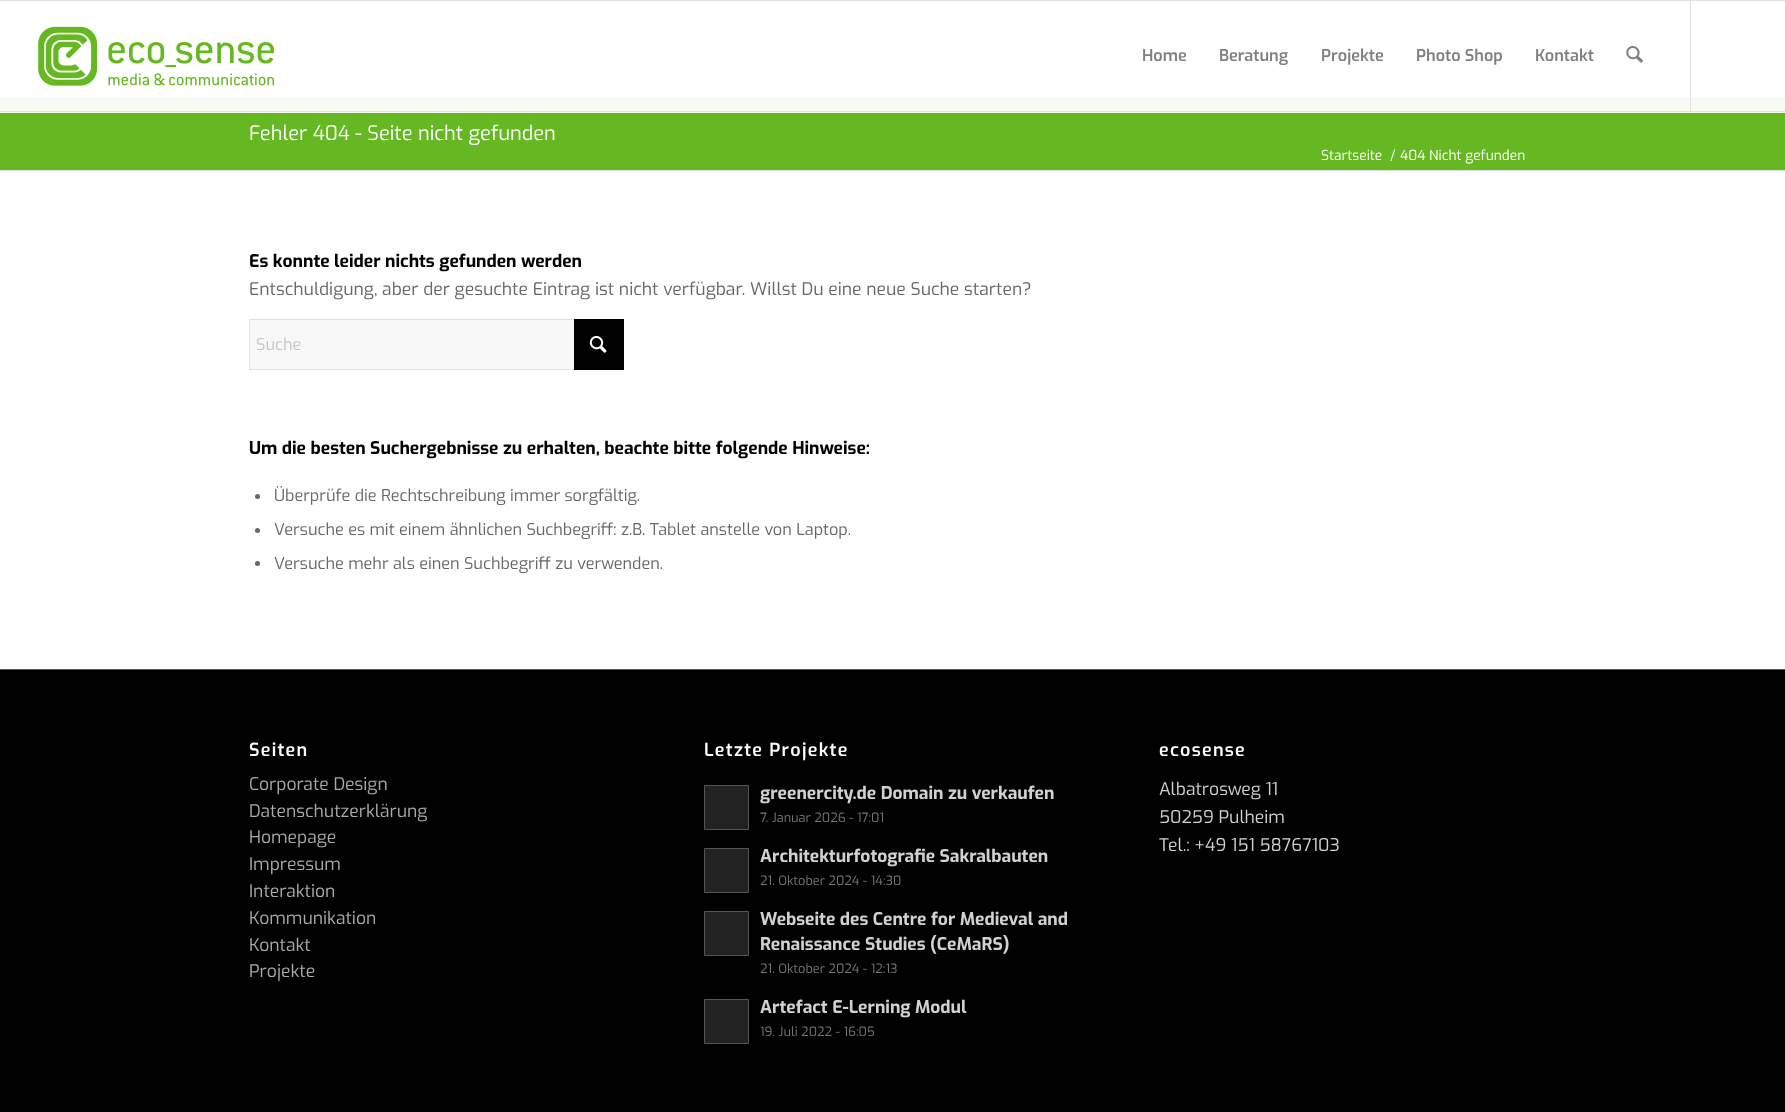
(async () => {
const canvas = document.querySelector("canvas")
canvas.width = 1785
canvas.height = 1112
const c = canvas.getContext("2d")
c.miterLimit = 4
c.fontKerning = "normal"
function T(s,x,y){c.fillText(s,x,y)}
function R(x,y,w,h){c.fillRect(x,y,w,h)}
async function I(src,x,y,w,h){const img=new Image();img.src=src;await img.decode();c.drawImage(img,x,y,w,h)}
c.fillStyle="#fff"
R(0,0,1785,1112)
c.fillStyle="#e1e1e1"
R(0,0,1785,1)
c.fillStyle="#f7fbf4"
R(0,99,1785,14)
c.fillStyle="#e1e1e1"
R(0,111,1785,1)
await I("1.png",38,26,237,60)
c.fillStyle="#f5f5f5"
R(0,98,1785,1)
c.fillStyle="#e1e1e1"
R(1690,1,1,110)
c.font="600 16.25px Exo"
c.fillStyle="#808080"
T("Home",1142,61)
T("Beratung",1219,61)
T("Projekte",1321,61)
T("Photo Shop",1416,61)
T("Kontakt",1535,61)
await I("2.png",1626,46,17,17)
c.fillStyle="#65b821"
R(0,113,1785,57)
c.font="20px Exo"
c.fillStyle="#fff"
T("Fehler 404 - Seite nicht gefunden",249,140)
c.font="13.75px Exo"
T("Startseite",1321,160)
T("/",1390,160)
T("404 Nicht gefunden",1400,160)
c.fillStyle="#e1e1e1"
R(0,170,1785,1)
c.font="bold 17.5px Exo"
c.fillStyle="#000"
T("Es konnte leider nichts gefunden werden",249,267)
c.font="17.5px Exo"
c.fillStyle="#666"
T("Entschuldigung, aber der gesuchte Eintrag ist nicht verfügbar. Willst Du eine neue Suche starten?",249,295)
c.fillStyle="#f8f8f8"
R(250,320,324,49)
c.strokeStyle="#e1e1e1"
c.strokeRect(249.5,319.5,374,50)
c.fillStyle="#000"
R(574,319,50,51)
c.font="16.25px Exo"
c.fillStyle="#c5c5c5"
T("Suche",256,350)
await I("3.png",589,336,18,17)
c.font="bold 17.5px Exo"
c.fillStyle="#000"
T("Um die besten Suchergebnisse zu erhalten, beachte bitte folgende Hinweise:",249,454)
c.fillStyle="#666"
c.beginPath()
c.arc(257.5,496.5,2.5,0,7)
c.fill()
c.font="16.25px Exo"
T("Überprüfe die Rechtschreibung immer sorgfältig.",274,501)
c.beginPath()
c.arc(257.5,530.5,2.5,0,7)
c.fill()
T("Versuche es mit einem ähnlichen Suchbegriff: z.B. Tablet anstelle von Laptop.",274,535)
c.beginPath()
c.arc(257.5,563.5,2.5,0,7)
c.fill()
T("Versuche mehr als einen Suchbegriff zu verwenden.",274,569)
c.fillStyle="#000"
R(0,670,1785,442)
c.fillStyle="#555"
R(0,669,1785,1)
c.letterSpacing="1.25px"
c.font="600 18px Exo"
c.fillStyle="#fff"
T("Seiten",249,756)
c.letterSpacing="0px"
c.font="17.5px Exo"
c.fillStyle="#aaa"
T("Corporate Design",249,790)
T("Datenschutzerklärung",249,817)
T("Homepage",249,843)
T("Impressum",249,870)
T("Interaktion",249,897)
T("Kommunikation",249,924)
T("Kontakt",249,951)
T("Projekte",249,977)
c.letterSpacing="1.25px"
c.font="600 18px Exo"
c.fillStyle="#fff"
T("Letzte Projekte",704,756)
c.fillStyle="#222"
c.beginPath()
c.rect(704.5,785.5,44,44)
c.fill()
c.strokeStyle="#555"
c.stroke()
c.letterSpacing="0px"
c.font="bold 17.5px Exo"
c.fillStyle="#d1d1d1"
T("greenercity.de Domain zu verkaufen",760,799)
c.font="12.75px Exo"
c.fillStyle="#777"
T("7. Januar 2026 - 17:01",760,822)
c.fillStyle="#222"
c.beginPath()
c.rect(704.5,848.5,44,44)
c.fill()
c.stroke()
c.font="bold 17.5px Exo"
c.fillStyle="#d1d1d1"
T("Architekturfotografie Sakralbauten",760,862)
c.font="12.75px Exo"
c.fillStyle="#777"
T("21. Oktober 2024 - 14:30",760,885)
c.fillStyle="#222"
c.beginPath()
c.rect(704.5,911.5,44,44)
c.fill()
c.stroke()
c.font="bold 17.5px Exo"
c.fillStyle="#d1d1d1"
T("Webseite des Centre for Medieval and",760,925)
T("Renaissance Studies (CeMaRS)",760,950)
c.font="12.75px Exo"
c.fillStyle="#777"
T("21. Oktober 2024 - 12:13",760,973)
c.fillStyle="#222"
c.beginPath()
c.rect(704.5,999.5,44,44)
c.fill()
c.stroke()
c.font="bold 17.5px Exo"
c.fillStyle="#d1d1d1"
T("Artefact E-Lerning Modul",760,1013)
c.font="12.75px Exo"
c.fillStyle="#777"
T("19. Juli 2022 - 16:05",760,1036)
c.letterSpacing="1.25px"
c.font="600 18px Exo"
c.fillStyle="#fff"
T("ecosense",1159,756)
c.letterSpacing="0px"
c.font="17.5px Exo"
c.fillStyle="#d1d1d1"
T("Albatrosweg 11",1159,795)
T("50259 Pulheim",1159,823)
T("Tel.: +49 151 58767103",1159,851)
})()
